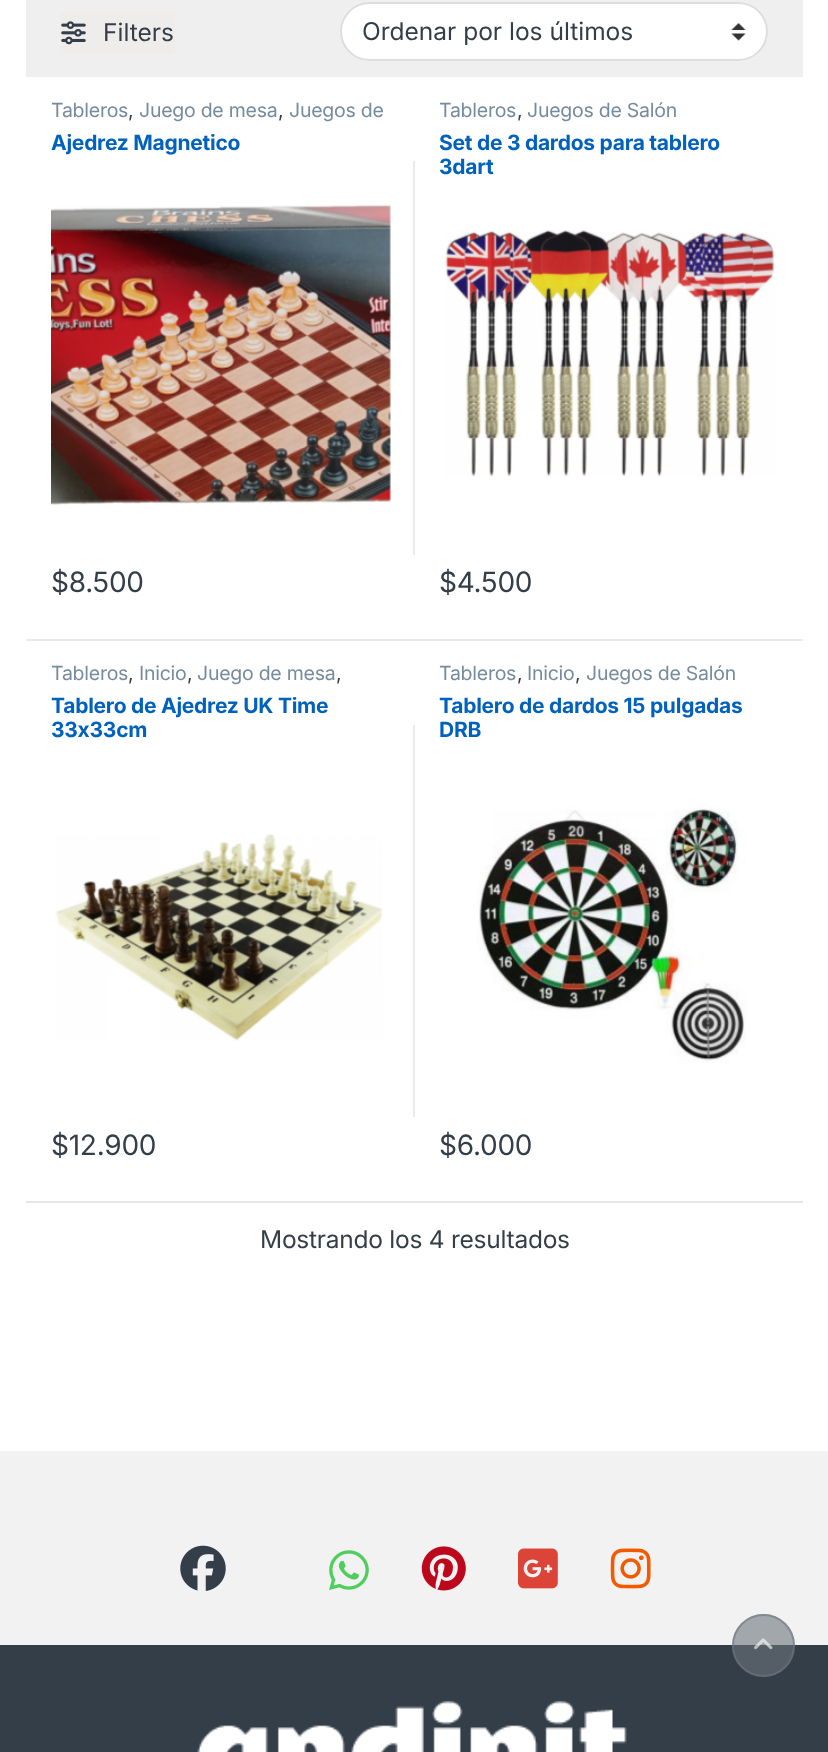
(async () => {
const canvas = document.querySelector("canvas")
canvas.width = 828
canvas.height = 1752
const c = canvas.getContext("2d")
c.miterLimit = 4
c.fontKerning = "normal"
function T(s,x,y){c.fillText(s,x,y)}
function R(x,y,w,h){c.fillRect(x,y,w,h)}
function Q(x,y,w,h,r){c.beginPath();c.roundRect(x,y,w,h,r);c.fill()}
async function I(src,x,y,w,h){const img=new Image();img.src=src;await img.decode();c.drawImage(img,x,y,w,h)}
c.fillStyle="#fff"
R(0,0,828,1752)
c.fillStyle="#efefef"
R(26,0,777,77)
c.fillStyle="#efecec"
R(61,12,114,42)
await I("1.png",61,21,25,24)
c.font="24.5px Inter"
c.fillStyle="#333e48"
T("Filters",103,41)
c.fillStyle="#fff"
Q(340,2,428,59,29.5)
await I("2.png",731,23,15,18)
c.beginPath()
c.roundRect(341,3,426,57,28.5)
c.strokeStyle="#ddd"
c.lineWidth=2
c.stroke()
c.fillStyle="#333e48"
T("Ordenar por los últimos",362,40)
c.fillStyle="#eaeaea"
R(26,639,777,2)
c.letterSpacing="-0.25px"
c.font="19.5px Inter"
c.fillStyle="#768b9e"
T("Tableros",51,117)
c.fillStyle="#333e48"
T(",",128,117)
c.fillStyle="#768b9e"
T("Juego de mesa",139,117)
c.fillStyle="#333e48"
T(",",278,117)
c.fillStyle="#768b9e"
T("Juegos de",289,117)
c.font="bold 21px Inter"
c.fillStyle="#0062bd"
T("Ajedrez Magnetico",51,150)
await I("3.png",51,205,340,300)
c.font="28px Inter"
c.fillStyle="#333e48"
T("$8.500",51,592)
c.fillStyle="#eaeaea"
R(413,161,2,394)
c.font="19.5px Inter"
c.fillStyle="#768b9e"
T("Tableros",439,117)
c.fillStyle="#333e48"
T(",",517,117)
c.fillStyle="#768b9e"
T("Juegos de Salón",527,117)
c.font="bold 21px Inter"
c.fillStyle="#0062bd"
T("Set de 3 dardos para tablero",439,150)
T("3dart",439,174)
await I("4.png",445,230,330,247)
c.font="28px Inter"
c.fillStyle="#333e48"
T("$4.500",439,592)
c.font="19.5px Inter"
c.fillStyle="#768b9e"
T("Tableros",51,680)
c.fillStyle="#333e48"
T(",",128,680)
c.fillStyle="#768b9e"
T("Inicio",139,680)
c.fillStyle="#333e48"
T(",",187,680)
c.fillStyle="#768b9e"
T("Juego de mesa",197,680)
c.fillStyle="#333e48"
T(",",336,680)
c.font="bold 21px Inter"
c.fillStyle="#0062bd"
T("Tablero de Ajedrez UK Time",51,713)
T("33x33cm",51,737)
await I("5.png",55,834,328,207)
c.font="28px Inter"
c.fillStyle="#333e48"
T("$12.900",51,1155)
c.fillStyle="#eaeaea"
R(413,725,2,392)
c.font="19.5px Inter"
c.fillStyle="#768b9e"
T("Tableros",439,680)
c.fillStyle="#333e48"
T(",",517,680)
c.fillStyle="#768b9e"
T("Inicio",527,680)
c.fillStyle="#333e48"
T(",",575,680)
c.fillStyle="#768b9e"
T("Juegos de Salón",586,680)
c.font="bold 21px Inter"
c.fillStyle="#0062bd"
T("Tablero de dardos 15 pulgadas",439,713)
T("DRB",439,737)
await I("6.png",477,804,269,259)
c.font="28px Inter"
c.fillStyle="#333e48"
T("$6.000",439,1155)
c.fillStyle="#e7e7e7"
R(26,1201,777,2)
c.font="24.5px Inter"
c.fillStyle="#333e48"
T("Mostrando los 4 resultados",260,1248)
c.fillStyle="#f2f2f2"
R(0,1451,828,194)
await I("7.png",180,1545,46,46)
await I("8.png",329,1550,40,40)
await I("9.png",421,1546,45,45)
await I("10.png",518,1548,40,41)
await I("11.png",610,1548,41,41)
c.fillStyle="#333e48"
R(0,1645,828,107)
await I("12.png",197,1700,430,52)
c.fillStyle="#6c757d99"
c.beginPath()
c.arc(763.5,1645.5,31.5,0,7)
c.fill()
c.beginPath()
c.arc(763.5,1645.5,30.5,0,7)
c.strokeStyle="#6c757d99"
c.stroke()
await I("13.png",754,1638,19,12)
})()
